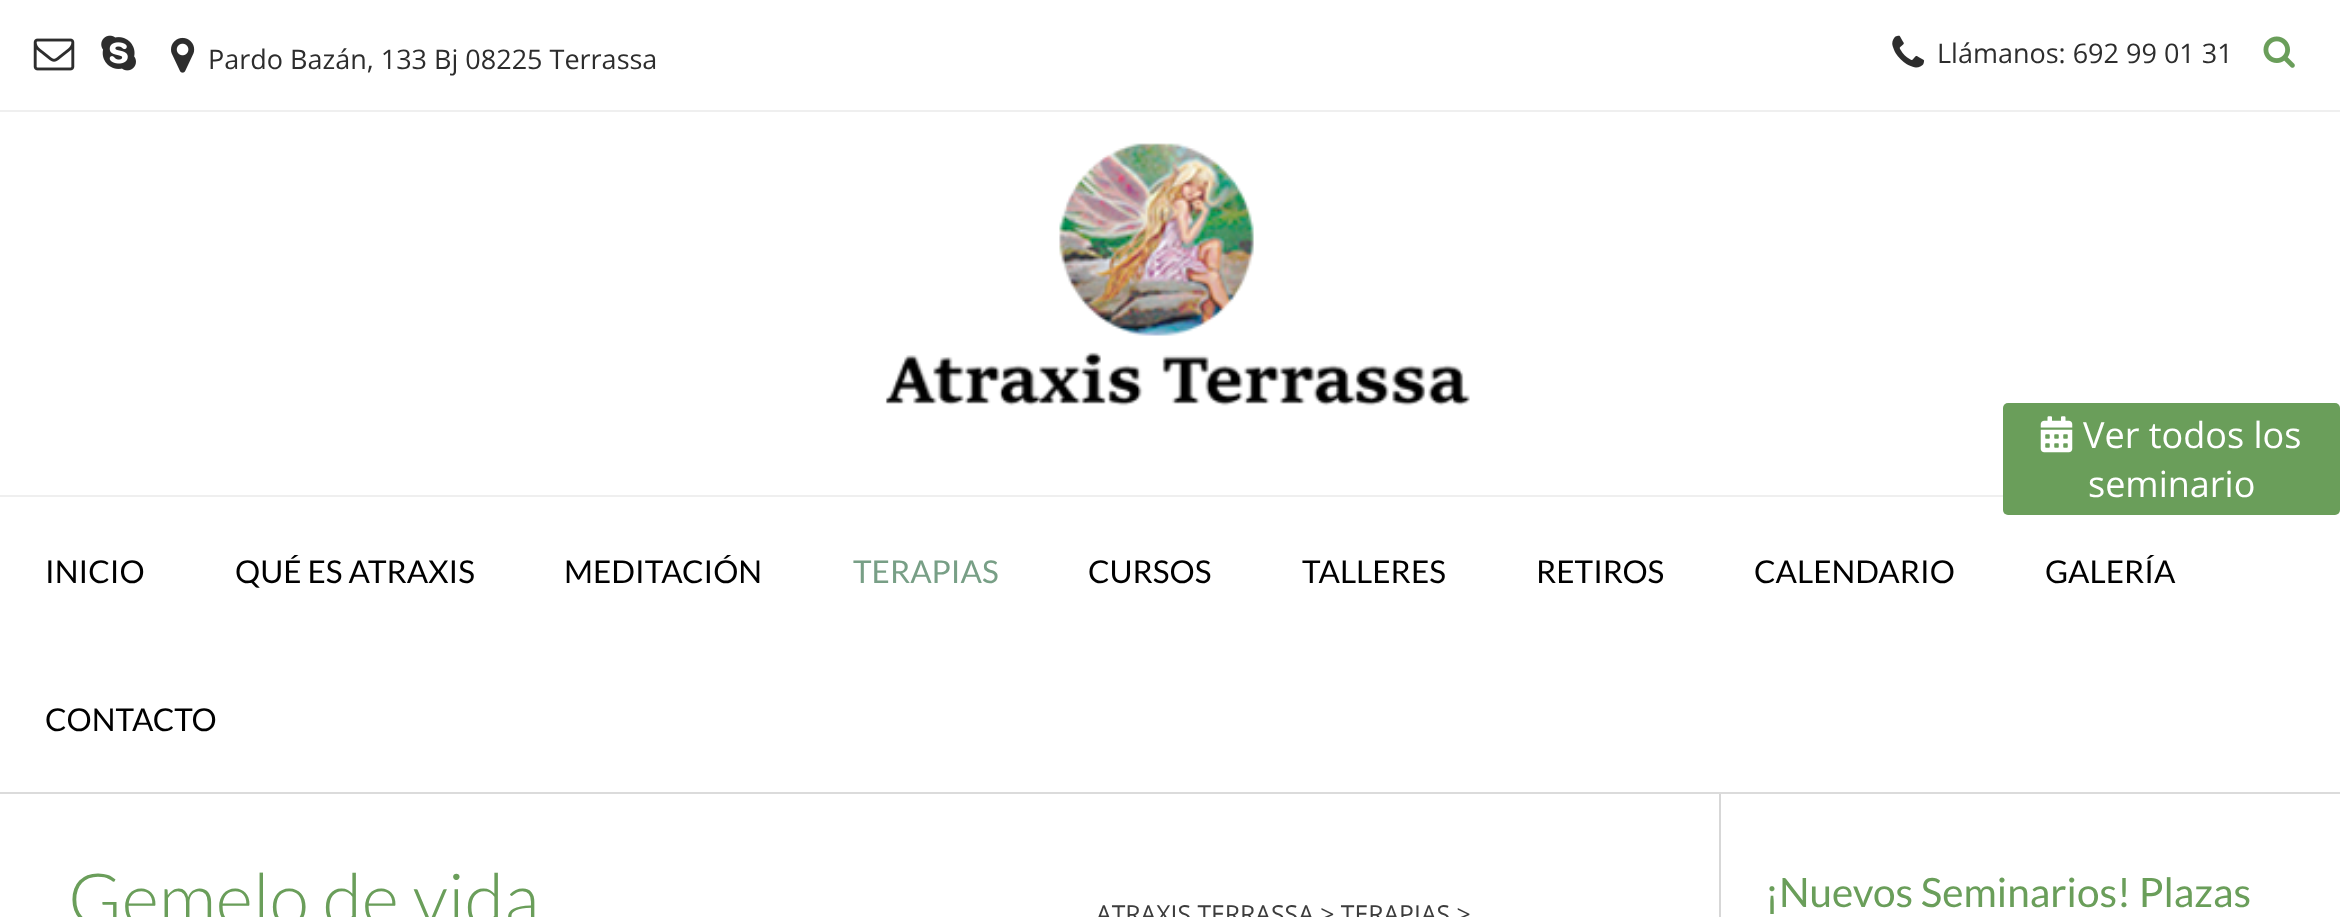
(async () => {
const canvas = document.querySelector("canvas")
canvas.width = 2340
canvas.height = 917
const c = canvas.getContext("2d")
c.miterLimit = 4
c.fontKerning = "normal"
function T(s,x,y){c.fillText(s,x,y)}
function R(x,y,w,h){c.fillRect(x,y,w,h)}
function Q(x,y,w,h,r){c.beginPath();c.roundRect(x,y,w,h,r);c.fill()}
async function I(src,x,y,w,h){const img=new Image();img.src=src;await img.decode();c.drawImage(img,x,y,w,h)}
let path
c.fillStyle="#fff"
R(0,0,2340,917)
c.fillStyle="#dbdbdb"
R(0,792,2340,2)
c.fillStyle="#efefef"
R(0,110,2340,2)
await I("1.png",33,38,42,33)
await I("2.png",101,35,35,36)
await I("3.png",171,37,24,36)
c.font="27px Open Sans"
c.fillStyle="#2d2d2d"
T("Pardo Bazán, 133 Bj 08225 Terrassa",208,69)
await I("4.png",1892,35,33,33)
T("Llámanos: 692 99 01 31",1937,63)
await I("5.png",2263,36,32,32)
await I("6.png",885,143,585,263)
c.fillStyle="#efefef"
R(0,495,2003,2)
c.font="31.5px Lato"
c.fillStyle="#000"
T("INICIO",45,583)
T("QUÉ ES ATRAXIS",235,583)
T("MEDITACIÓN",564,583)
c.fillStyle="#789f86"
T("TERAPIAS",853,583)
c.fillStyle="#000"
T("CURSOS",1088,583)
T("TALLERES",1302,583)
T("RETIROS",1536,583)
T("CALENDARIO",1754,583)
T("GALERÍA",2045,583)
T("CONTACTO",45,731)
c.font="300 72px Lato"
c.fillStyle="#6a9e5a"
T("Gemelo de vida",68,925)
c.font="24.75px Open Sans"
c.fillStyle="#3c3c3c"
T("ATRAXIS TERRASSA > TERAPIAS >",1096,923)
c.fillStyle="#d7d7d7"
path = new Path2D("M1719 794v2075h551h-549v-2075h549z")
c.fill(path)
c.font="40.5px Lato"
c.fillStyle="#6a9e5a"
T("¡Nuevos Seminarios! Plazas",1765,907)
Q(2003,403,337,112,5)
await I("7.png",2040,416,33,37)
c.font="36px Open Sans"
c.fillStyle="#fff"
T("Ver todos los",2083,448)
T("seminario",2088,497)
})()
